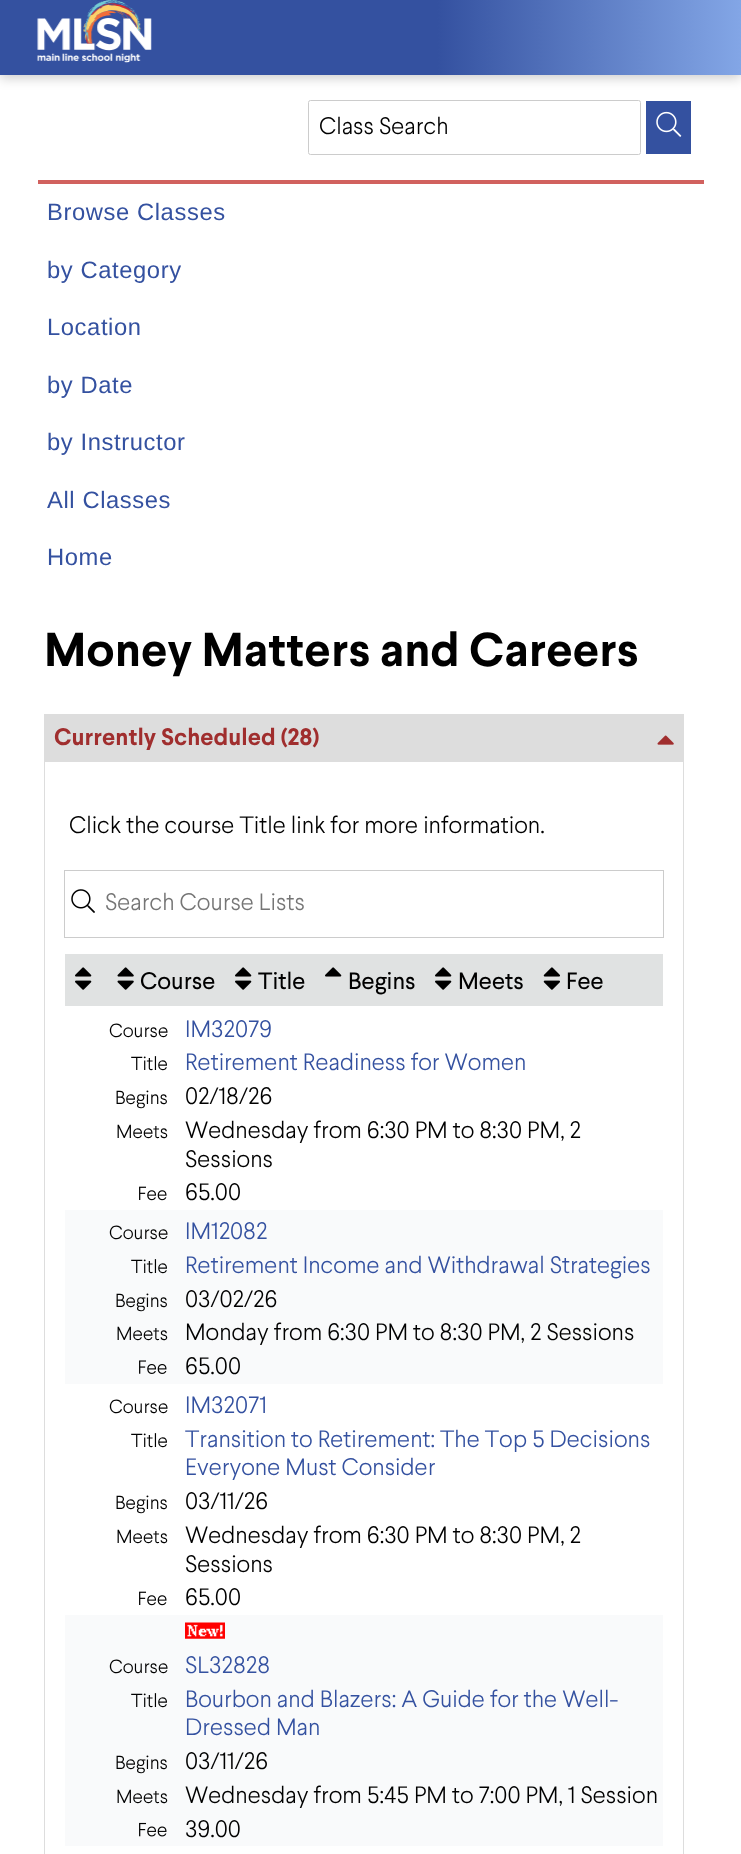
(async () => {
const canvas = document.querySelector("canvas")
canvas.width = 741
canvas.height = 1854
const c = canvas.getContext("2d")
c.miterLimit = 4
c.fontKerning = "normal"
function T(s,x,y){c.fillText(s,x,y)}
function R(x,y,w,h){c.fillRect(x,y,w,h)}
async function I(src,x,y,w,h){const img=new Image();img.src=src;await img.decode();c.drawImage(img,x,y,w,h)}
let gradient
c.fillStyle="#fff"
R(0,0,741,1854)
c.fillStyle="#00000033"
c.filter="blur(6px)"
c.beginPath()
c.rect(0,3,741,75)
c.fill()
c.filter="none"
gradient = c.createLinearGradient(0,38,741,37)
gradient.addColorStop(0,"#3451a0")
gradient.addColorStop(.59,"#3451a0")
gradient.addColorStop(1,"#83a6e6")
c.fillStyle = gradient
R(0,0,741,75)
await I("1.png",37,0,115,63)
c.beginPath()
c.roundRect(308.5,100.5,332,54,2)
c.strokeStyle="#ccc"
c.stroke()
c.font="23.75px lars"
c.fillStyle="#000"
T("Class Search",319,134)
c.fillStyle="#3451a0"
R(646,101,45,53)
await I("2.png",656,111,26,26)
c.fillStyle="#d1615e"
R(38,180,666,4)
c.letterSpacing="0.6px"
c.font="23.75px Liberation Sans"
c.fillStyle="#3451a0"
T("Browse Classes",47,220)
T("by Category",47,278)
T("Location",47,335)
T("by Date",47,393)
T("by Instructor",47,450)
T("All Classes",47,508)
T("Home",47,565)
c.letterSpacing="0px"
c.font="47.5px 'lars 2'"
c.fillStyle="#000"
T("Money Matters and Careers",44,666)
c.fillStyle="#ddd"
R(44,714,640,47)
c.font="23.75px 'lars 2'"
c.fillStyle="#a02e2e"
T("Currently Scheduled (28)",54,745)
await I("3.png",657,735,17,10)
c.strokeStyle="#ddd"
c.strokeRect(44.5,761.5,639,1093)
c.font="23.75px lars"
c.fillStyle="#000"
T("Click the course Title link for more information.",69,833)
c.strokeStyle="#ccc"
c.strokeRect(64.5,870.5,599,67)
await I("4.png",71,889,24,24)
c.fillStyle="#757575"
T("Search Course Lists",105,910)
c.fillStyle="#e0e2e2"
R(65,954,598,52)
await I("5.png",75,967,17,23)
await I("6.png",117,967,17,23)
c.font="23.75px 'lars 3'"
c.fillStyle="#000"
T("Course",140,989)
await I("5.png",235,967,17,23)
T("Title",258,989)
await I("7.png",325,967,17,10)
T("Begins",348,989)
await I("5.png",435,967,17,23)
T("Meets",458,989)
await I("8.png",543,967,17,23)
T("Fee",566,989)
c.font="19px lars"
T("Course",109,1037)
c.font="23.75px lars"
c.fillStyle="#3451a0"
T("IM32079",185,1037)
c.font="19px lars"
c.fillStyle="#000"
T("Title",131,1070)
c.font="23.75px lars"
c.fillStyle="#3451a0"
T("Retirement Readiness for Women",185,1070)
c.font="19px lars"
c.fillStyle="#000"
T("Begins",115,1104)
c.font="23.75px lars"
T("02/18/26",185,1104)
c.font="19px lars"
T("Meets",116,1138)
c.font="23.75px lars"
T("Wednesday from 6:30 PM to 8:30 PM, 2",185,1138)
T("Sessions",185,1167)
await I("9.png",139,1186,28,15)
T("65.00",185,1200)
c.fillStyle="#f9fafb"
R(65,1210,598,174)
c.font="19px lars"
c.fillStyle="#000"
T("Course",109,1239)
c.font="23.75px lars"
c.fillStyle="#3451a0"
T("IM12082",185,1239)
c.font="19px lars"
c.fillStyle="#000"
T("Title",131,1273)
c.font="23.75px lars"
c.fillStyle="#3451a0"
T("Retirement Income and Withdrawal Strategies",185,1273)
c.font="19px lars"
c.fillStyle="#000"
T("Begins",115,1307)
c.font="23.75px lars"
T("03/02/26",185,1307)
c.font="19px lars"
T("Meets",116,1340)
c.font="23.75px lars"
T("Monday from 6:30 PM to 8:30 PM, 2 Sessions",185,1340)
await I("10.png",139,1360,28,14)
T("65.00",185,1374)
c.font="19px lars"
T("Course",109,1413)
c.font="23.75px lars"
c.fillStyle="#3451a0"
T("IM32071",185,1413)
c.font="19px lars"
c.fillStyle="#000"
T("Title",131,1447)
c.font="23.75px lars"
c.fillStyle="#3451a0"
T("Transition to Retirement: The Top 5 Decisions",185,1447)
T("Everyone Must Consider",185,1475)
c.font="19px lars"
c.fillStyle="#000"
T("Begins",115,1509)
c.font="23.75px lars"
T("03/11/26",185,1509)
c.font="19px lars"
T("Meets",116,1543)
c.font="23.75px lars"
T("Wednesday from 6:30 PM to 8:30 PM, 2",185,1543)
T("Sessions",185,1572)
await I("9.png",139,1591,28,15)
T("65.00",185,1605)
c.fillStyle="#f9fafb"
R(65,1615,598,231)
await I("11.png",185,1622,40,17)
c.font="19px lars"
c.fillStyle="#000"
T("Course",109,1673)
c.font="23.75px lars"
c.fillStyle="#3451a0"
T("SL32828",185,1673)
c.font="19px lars"
c.fillStyle="#000"
T("Title",131,1707)
c.font="23.75px lars"
c.fillStyle="#3451a0"
T("Bourbon and Blazers: A Guide for the Well-",185,1707)
T("Dressed Man",185,1735)
c.font="19px lars"
c.fillStyle="#000"
T("Begins",115,1769)
c.font="23.75px lars"
T("03/11/26",185,1769)
c.font="19px lars"
T("Meets",116,1803)
c.font="23.75px lars"
T("Wednesday from 5:45 PM to 7:00 PM, 1 Session",185,1803)
await I("12.png",139,1822,28,15)
T("39.00",185,1837)
})()
